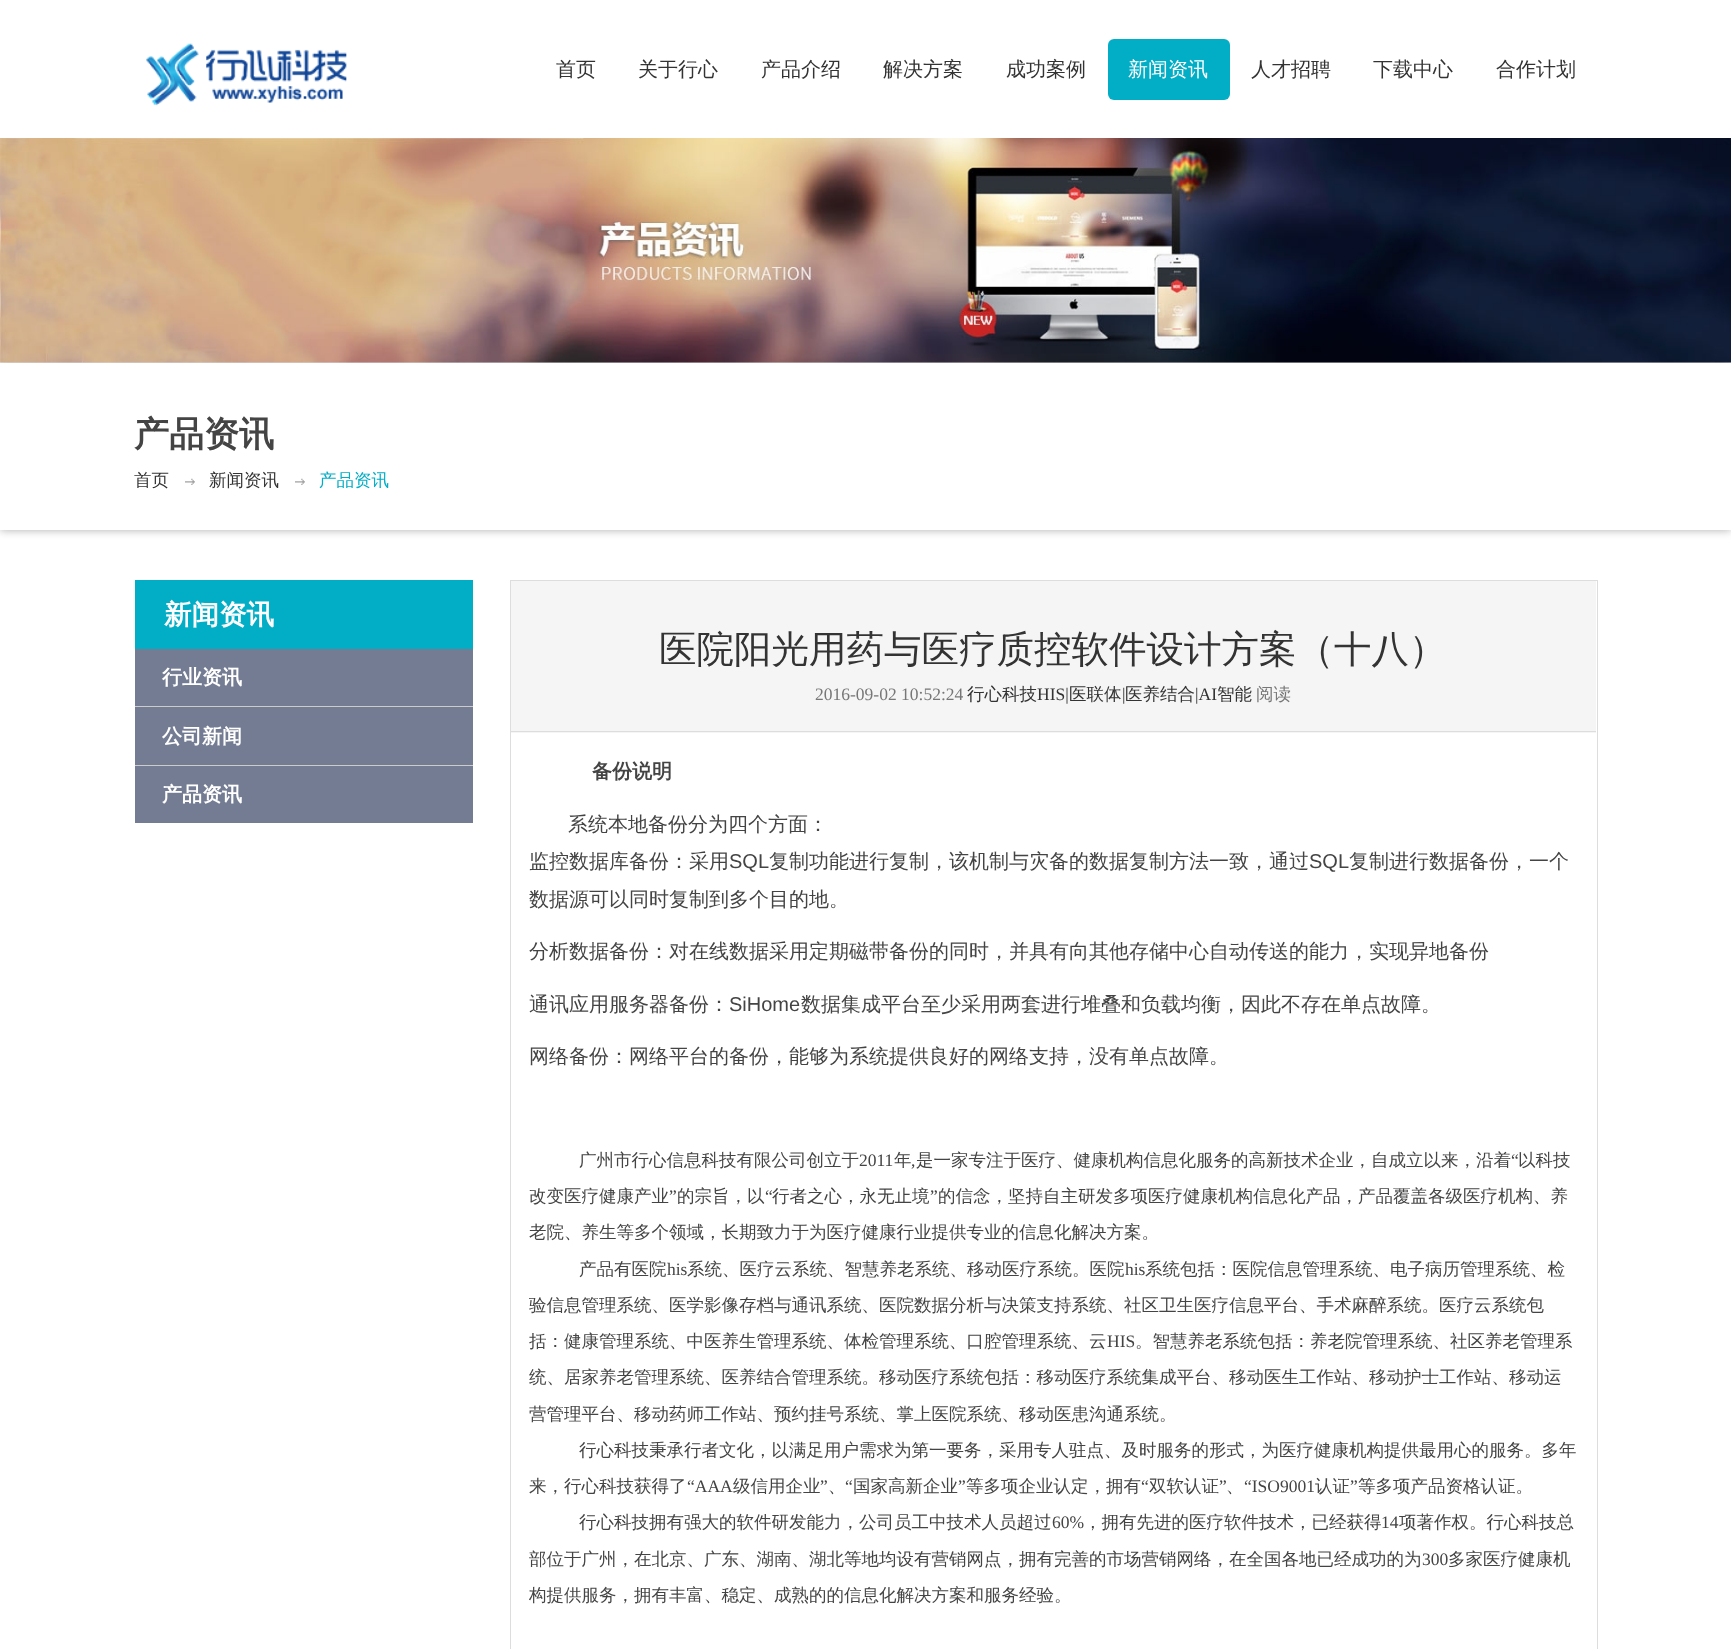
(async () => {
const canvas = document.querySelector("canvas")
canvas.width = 1731
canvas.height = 1649
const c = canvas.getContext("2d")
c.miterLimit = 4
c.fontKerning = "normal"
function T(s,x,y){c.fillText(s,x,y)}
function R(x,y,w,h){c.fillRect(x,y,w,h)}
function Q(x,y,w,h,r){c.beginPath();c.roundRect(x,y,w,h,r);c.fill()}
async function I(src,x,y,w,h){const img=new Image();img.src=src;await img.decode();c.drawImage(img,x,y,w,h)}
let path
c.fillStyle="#fff"
R(0,0,1731,1649)
await I("1.png",146,43,201,63)
c.font="500 20px WenQuanYi Zen Hei"
c.fillStyle="#333"
T("首页",556,76)
T("关于行心",638,76)
T("产品介绍",761,76)
T("解决方案",883,76)
T("成功案例",1006,76)
c.fillStyle="#02adc6"
Q(1108,39,122,61,6)
c.fillStyle="#fff"
T("新闻资讯",1128,76)
c.fillStyle="#333"
T("人才招聘",1251,76)
T("下载中心",1373,76)
T("合作计划",1496,76)
c.save()
path = new Path2D("M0 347h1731v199h-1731zm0 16h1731v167h-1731z")
c.clip(path,"evenodd")
c.fillStyle="#00000052"
c.filter="blur(5px)"
c.beginPath()
c.rect(0,363,1731,167)
c.fill()
c.filter="none"
c.restore()
await I("2.png",0,138,1731,225)
c.font="bold 35px WenQuanYi Zen Hei"
c.fillStyle="#444"
T("产品资讯",134,446)
await I("3.png",185,478,10,7)
c.font="500 17.5px WenQuanYi Zen Hei"
c.fillStyle="#333"
T("首页",134,486)
await I("3.png",295,478,10,7)
T("新闻资讯",209,486)
c.fillStyle="#02adc6"
T("产品资讯",319,486)
R(135,580,338,69)
c.font="bold 27.5px WenQuanYi Zen Hei"
c.fillStyle="#fff"
T("新闻资讯",164,624)
c.fillStyle="#737c92"
R(135,649,338,116)
c.fillStyle="#ccc"
R(135,706,338,1)
c.font="bold 20px WenQuanYi Zen Hei"
c.fillStyle="#fff"
T("行业资讯",162,684)
c.fillStyle="#ccc"
R(135,765,338,1)
c.fillStyle="#fff"
T("公司新闻",162,743)
c.fillStyle="#737c92"
R(135,766,338,57)
c.fillStyle="#fff"
T("产品资讯",162,801)
c.strokeStyle="#ddd"
c.strokeRect(510.5,580.5,1087,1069)
c.fillStyle="#f5f5f5"
R(511,581,1085,152)
c.fillStyle="#ddd"
R(511,731,1085,1)
c.font="500 37.5px WenQuanYi Zen Hei"
c.fillStyle="#333"
T("医院阳光用药与医疗质控软件设计方案（十八）",659,662)
c.font="17.5px Liberation Serif"
c.fillStyle="#777"
T("2016-09-02 10:52:24",815,700)
c.font="500 17.5px WenQuanYi Zen Hei"
c.fillStyle="#333"
T("行心科技",967,700)
c.font="17.5px Liberation Serif"
T("HIS|",1037,700)
c.font="500 17.5px WenQuanYi Zen Hei"
T("医联体",1069,700)
c.font="17.5px Liberation Serif"
T("|",1122,700)
c.font="500 17.5px WenQuanYi Zen Hei"
T("医养结合",1125,700)
c.font="17.5px Liberation Serif"
T("|AI",1195,700)
c.font="500 17.5px WenQuanYi Zen Hei"
T("智能",1217,700)
c.fillStyle="#777"
T("阅读",1256,700)
c.font="bold 20px WenQuanYi Zen Hei"
c.fillStyle="#444"
T("备份说明",592,778)
c.font="500 20px WenQuanYi Zen Hei"
T("系统本地备份分为四个方面：",568,831)
T("监控数据库备份：采用",529,868)
c.font="20px Liberation Sans"
T("SQL",729,868)
c.font="500 20px WenQuanYi Zen Hei"
T("复制功能进行复制，该机制与灾备的数据复制方法一致，通过",769,868)
c.font="20px Liberation Sans"
T("SQL",1309,868)
c.font="500 20px WenQuanYi Zen Hei"
T("复制进行数据备份，一个",1349,868)
T("数据源可以同时复制到多个目的地。",529,906)
T("分析数据备份：对在线数据采用定期磁带备份的同时，并具有向其他存储中心自动传送的能力，实现异地备份",529,958)
T("通讯应用服务器备份：",529,1011)
c.font="20px Liberation Sans"
T("SiHome",729,1011)
c.font="500 20px WenQuanYi Zen Hei"
T("数据集成平台至少采用两套进行堆叠和负载均衡，因此不存在单点故障。",801,1011)
T("网络备份：网络平台的备份，能够为系统提供良好的网络支持，没有单点故障。",529,1063)
c.font="500 17.5px WenQuanYi Zen Hei"
T("广州市行心信息科技有限公司创立于",579,1166)
c.font="17.5px Liberation Serif"
T("2011",859,1166)
c.font="500 17.5px WenQuanYi Zen Hei"
T("年",894,1166)
T("是一家专注于医疗、健康机构信息化服务的高新技术企业，自成立以来，沿着",916,1166)
c.font="17.5px Liberation Serif"
T("“",1511,1166)
c.font="500 17.5px WenQuanYi Zen Hei"
T("以科技",1518,1166)
c.font="17.5px Liberation Serif"
T(",",911,1166)
c.font="500 17.5px WenQuanYi Zen Hei"
T("改变医疗健康产业",529,1202)
c.font="17.5px Liberation Serif"
T("”",669,1202)
c.font="500 17.5px WenQuanYi Zen Hei"
T("的宗旨，以",677,1202)
c.font="17.5px Liberation Serif"
T("“",765,1202)
c.font="500 17.5px WenQuanYi Zen Hei"
T("行者之心，永无止境",772,1202)
c.font="17.5px Liberation Serif"
T("”",930,1202)
c.font="500 17.5px WenQuanYi Zen Hei"
T("的信念，坚持自主研发多项医疗健康机构信息化产品，产品覆盖各级医疗机构、养",938,1202)
T("老院、养生等多个领域，长期致力于为医疗健康行业提供专业的信息化解决方案。",529,1238)
T("产品有医院",579,1275)
c.font="17.5px Liberation Serif"
T("his",667,1275)
c.font="500 17.5px WenQuanYi Zen Hei"
T("系统、医疗云系统、智慧养老系统、移动医疗系统。医院",687,1275)
c.font="17.5px Liberation Serif"
T("his",1125,1275)
c.font="500 17.5px WenQuanYi Zen Hei"
T("系统包括：医院信息管理系统、电子病历管理系统、检",1145,1275)
T("验信息管理系统、医学影像存档与通讯系统、医院数据分析与决策支持系统、社区卫生医疗信息平台、手术麻醉系统。医疗云系统包",529,1311)
T("括：健康管理系统、中医养生管理系统、体检管理系统、口腔管理系统、云",529,1347)
c.font="17.5px Liberation Serif"
T("HIS",1107,1347)
c.font="500 17.5px WenQuanYi Zen Hei"
T("。智慧养老系统包括：养老院管理系统、社区养老管理系",1135,1347)
T("统、居家养老管理系统、医养结合管理系统。移动医疗系统包括：移动医疗系统集成平台、移动医生工作站、移动护士工作站、移动运",529,1383)
T("营管理平台、移动药师工作站、预约挂号系统、掌上医院系统、移动医患沟通系统。",529,1420)
T("行心科技秉承行者文化，以满足用户需求为第一要务，采用专人驻点、及时服务的形式，为医疗健康机构提供最用心的服务。多年",579,1456)
T("来，行心科技获得了",529,1492)
c.font="17.5px Liberation Serif"
T("“AAA",687,1492)
c.font="500 17.5px WenQuanYi Zen Hei"
T("级信用企业",733,1492)
c.font="17.5px Liberation Serif"
T("”",820,1492)
T("“",845,1492)
c.font="500 17.5px WenQuanYi Zen Hei"
T("国家高新企业",853,1492)
c.font="17.5px Liberation Serif"
T("”",958,1492)
c.font="500 17.5px WenQuanYi Zen Hei"
T("等多项企业认定，拥有",966,1492)
c.font="17.5px Liberation Serif"
T("“",1141,1492)
c.font="500 17.5px WenQuanYi Zen Hei"
T("双软认证",1149,1492)
c.font="17.5px Liberation Serif"
T("”",1219,1492)
T("“ISO9001",1244,1492)
c.font="500 17.5px WenQuanYi Zen Hei"
T("认证",1315,1492)
c.font="17.5px Liberation Serif"
T("”",1350,1492)
c.font="500 17.5px WenQuanYi Zen Hei"
T("等多项产品资格认证。",1358,1492)
T("、",828,1492)
T("、",1226,1492)
T("行心科技拥有强大的软件研发能力，公司员工中技术人员超过",579,1528)
c.font="17.5px Liberation Serif"
T("60%",1052,1528)
c.font="500 17.5px WenQuanYi Zen Hei"
T("，拥有先进的医疗软件技术，已经获得",1084,1528)
c.font="17.5px Liberation Serif"
T("14",1381,1528)
c.font="500 17.5px WenQuanYi Zen Hei"
T("项著作权。行心科技总",1399,1528)
T("部位于广州，在北京、广东、湖南、湖北等地均设有营销网点，拥有完善的市场营销网络，在全国各地已经成功的为",529,1565)
c.font="17.5px Liberation Serif"
T("300",1422,1565)
c.font="500 17.5px WenQuanYi Zen Hei"
T("多家医疗健康机",1448,1565)
T("构提供服务，拥有丰富、稳定、成熟的的信息化解决方案和服务经验。",529,1601)
})()
